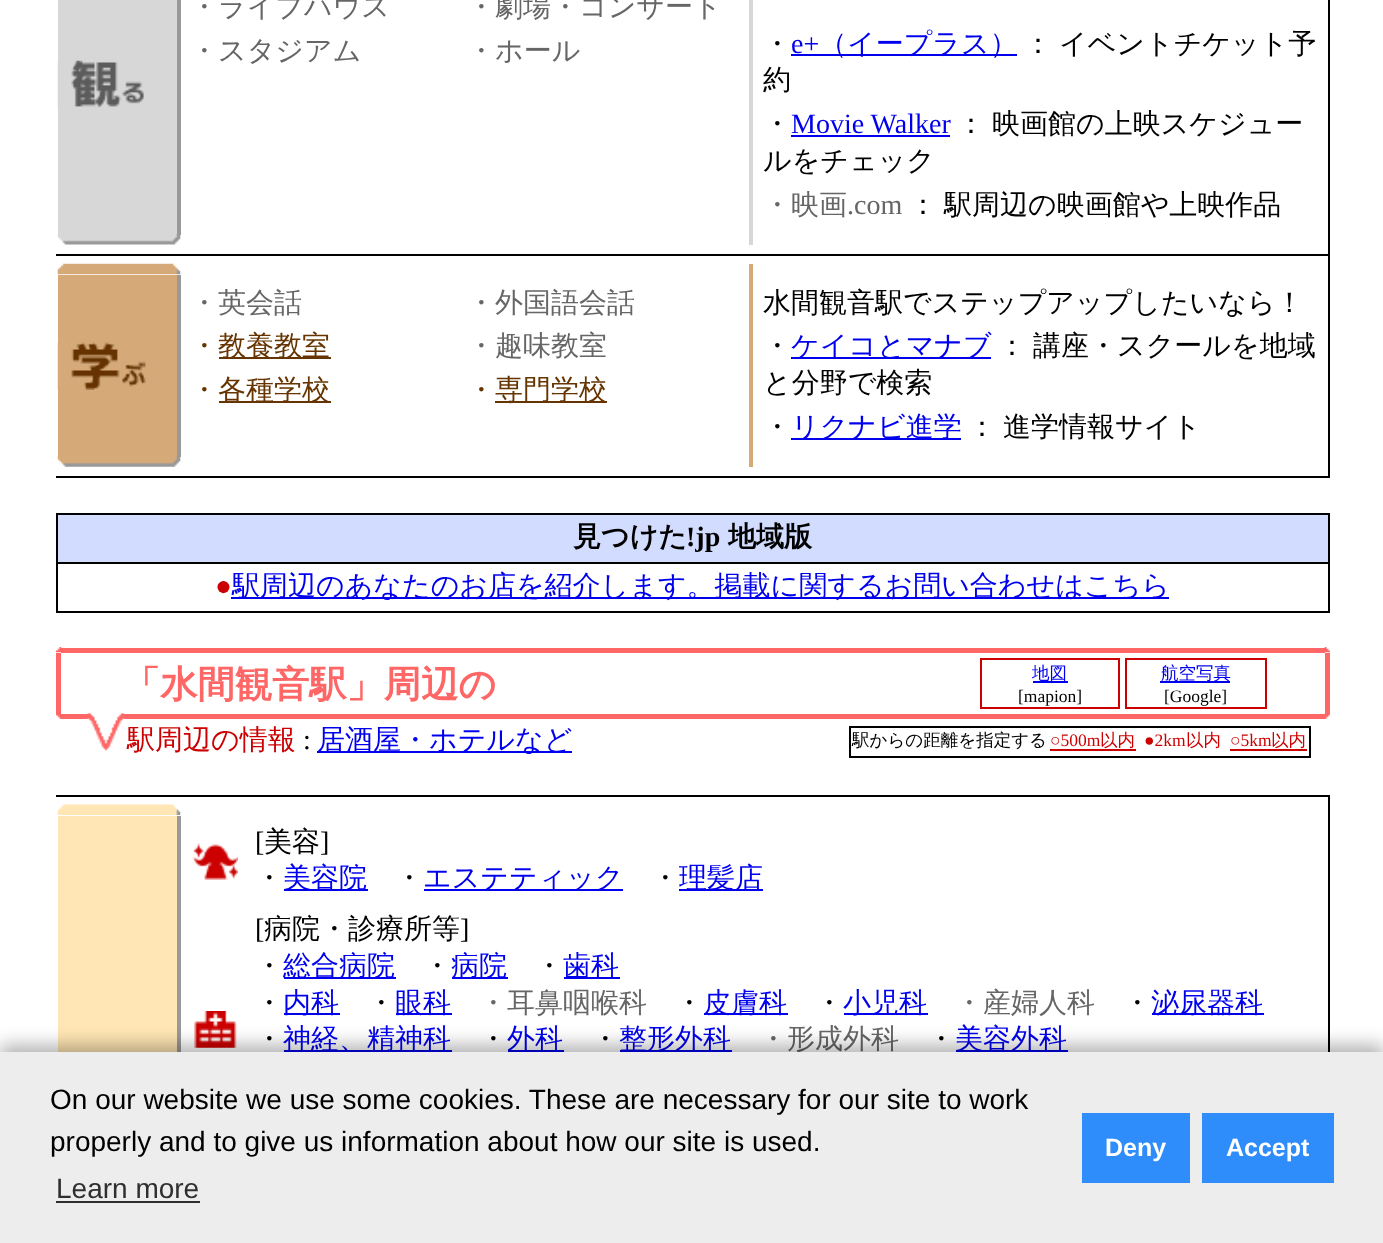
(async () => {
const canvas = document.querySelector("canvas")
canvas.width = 1383
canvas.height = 1243
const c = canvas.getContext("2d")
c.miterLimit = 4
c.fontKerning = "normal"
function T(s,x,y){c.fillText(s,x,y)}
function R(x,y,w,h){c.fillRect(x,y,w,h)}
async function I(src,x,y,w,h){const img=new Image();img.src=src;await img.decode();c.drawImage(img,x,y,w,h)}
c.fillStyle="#fff"
R(0,0,1383,1243)
c.fillStyle="#d7d7d7"
R(58,0,119,234)
await I("1.png",57,60,87,48)
c.fillStyle="#999"
R(177,0,4,235)
c.font="500 28px WenQuanYi Zen Hei"
c.fillStyle="#666"
T("・ライブハウス",190,16)
T("・劇場・コンサート",467,16)
T("・スタジアム",190,60)
T("・ホール",467,60)
c.fillStyle="#d7d7d7"
R(749,0,4,245)
c.fillStyle="#000"
T("・",763,53)
c.font="28px Liberation Serif"
c.fillStyle="#00e"
T("e+",791,53)
R(791,54,226,2)
c.font="500 28px WenQuanYi Zen Hei"
T("（イープラス）",819,53)
c.fillStyle="#000"
T("：",1024,53)
T("イベントチケット予",1059,53)
T("約",763,89)
T("・",763,133)
c.font="28px Liberation Serif"
c.fillStyle="#00e"
T("Movie Walker",791,133)
R(791,135,159,2)
c.font="500 28px WenQuanYi Zen Hei"
c.fillStyle="#000"
T("：",957,133)
T("映画館の上映スケジュー",992,133)
T("ルをチェック",763,170)
c.fillStyle="#666"
T("・映画",763,214)
c.font="28px Liberation Serif"
T(".com",847,214)
c.font="500 28px WenQuanYi Zen Hei"
c.fillStyle="#000"
T("：",909,214)
T("駅周辺の映画館や上映作品",944,214)
R(1328,0,2,254)
await I("2.png",57,234,124,11)
R(56,254,1274,2)
await I("3.png",57,263,124,12)
c.fillStyle="#d5aa78"
R(749,264,4,203)
c.fillStyle="#000"
R(1328,256,2,220)
c.fillStyle="#d5aa78"
R(58,275,119,182)
await I("4.png",57,342,89,48)
c.fillStyle="#999"
R(177,275,4,182)
c.fillStyle="#666"
T("・英会話",190,312)
T("・外国語会話",467,312)
c.fillStyle="#663401"
T("・",190,355)
R(219,357,112,2)
T("教養教室",218,355)
c.fillStyle="#666"
T("・趣味教室",467,355)
c.fillStyle="#663401"
T("・",190,399)
R(219,401,112,2)
T("各種学校",218,399)
T("・",467,399)
R(495,401,112,2)
T("専門学校",495,399)
c.fillStyle="#000"
T("水間観音駅でステップアップしたいなら！",763,312)
T("・",763,355)
c.fillStyle="#00e"
R(791,357,200,2)
T("ケイコとマナブ",791,355)
c.fillStyle="#000"
T("：",998,355)
T("講座・スクールを地域",1033,355)
T("と分野で検索",763,392)
T("・",763,436)
c.fillStyle="#00e"
R(791,438,170,2)
T("リクナビ進学",791,436)
c.fillStyle="#000"
T("：",968,436)
T("進学情報サイト",1003,436)
await I("5.png",57,456,124,11)
R(56,476,1274,2)
R(56,513,1274,100)
c.fillStyle="#d2dcff"
R(58,515,1270,47)
c.font="bold 28px WenQuanYi Zen Hei"
c.fillStyle="#000"
T("見つけた",573,546)
c.font="bold 28px Liberation Serif"
T("!jp",686,546)
c.font="bold 28px WenQuanYi Zen Hei"
T("地域版",728,546)
c.fillStyle="#fff"
R(58,564,1270,47)
c.font="28px Liberation Serif"
c.fillStyle="#c00"
T("●",215,595)
c.fillStyle="#00e"
R(231,597,938,2)
c.font="500 28px WenQuanYi Zen Hei"
T("駅周辺のあなたのお店を紹介します。掲載に関するお問い合わせはこちら",232,595)
c.fillStyle="#f66"
R(61,648,1264,5)
await I("6.png",56,647,6,6)
await I("7.png",1324,647,6,6)
R(56,653,5,61)
c.font="bold 37.25px WenQuanYi Zen Hei"
T("「水間観音駅」周辺の",123,697)
c.strokeStyle="#c00"
c.lineWidth=2
c.strokeRect(981,659,138,49)
c.fillStyle="#00e"
R(1033,681,35,2)
c.font="500 17.5px WenQuanYi Zen Hei"
T("地図",1032,679)
c.font="17.5px Liberation Serif"
c.fillStyle="#000"
T("[mapion]",1018,702)
c.strokeRect(1126,659,140,49)
c.fillStyle="#00e"
R(1160,681,70,2)
c.font="500 17.5px WenQuanYi Zen Hei"
T("航空写真",1161,679)
c.font="17.5px Liberation Serif"
c.fillStyle="#000"
T("[Google]",1164,702)
c.fillStyle="#f66"
R(1325,653,5,61)
R(61,714,27,5)
await I("8.png",56,713,6,6)
R(124,714,1201,5)
await I("9.png",87,713,38,38)
await I("10.png",1324,713,6,6)
c.font="500 28px WenQuanYi Zen Hei"
c.fillStyle="#c00"
T("駅周辺の情報",127,749)
c.font="28px Liberation Serif"
c.fillStyle="#000"
T(":",303,749)
c.fillStyle="#00e"
R(317,751,255,2)
c.font="500 28px WenQuanYi Zen Hei"
T("居酒屋・ホテルなど",317,749)
c.strokeStyle="#000"
c.strokeRect(850,727,460,30)
c.font="500 17.5px WenQuanYi Zen Hei"
c.fillStyle="#000"
T("駅からの距離を指定する",852,746)
c.font="17.5px Liberation Serif"
c.fillStyle="#c00"
T("○500m",1050,746)
R(1050,749,86,2)
c.font="500 17.5px WenQuanYi Zen Hei"
T("以内",1100,746)
c.font="17.5px Liberation Serif"
T("●2km",1144,746)
c.font="500 17.5px WenQuanYi Zen Hei"
T("以内",1186,746)
c.font="17.5px Liberation Serif"
T("○5km",1230,746)
R(1230,749,77,2)
c.font="500 17.5px WenQuanYi Zen Hei"
T("以内",1271,746)
c.fillStyle="#000"
R(56,795,1274,2)
await I("11.png",57,804,124,11)
R(1328,796,2,256)
c.fillStyle="#ffe6b4"
R(58,816,119,236)
c.fillStyle="#999"
R(177,816,4,236)
await I("12.png",192,843,46,37)
c.font="28px Liberation Serif"
c.fillStyle="#000"
T("[",255,851)
c.font="500 28px WenQuanYi Zen Hei"
T("美容",264,851)
c.font="28px Liberation Serif"
T("]",320,851)
c.font="500 28px WenQuanYi Zen Hei"
T("・",255,887)
c.fillStyle="#00e"
R(284,889,84,2)
T("美容院",283,887)
c.fillStyle="#000"
T("・",395,887)
c.fillStyle="#00e"
R(424,889,199,2)
T("エステティック",423,887)
c.fillStyle="#000"
T("・",651,887)
c.fillStyle="#00e"
R(679,889,84,2)
T("理髪店",679,887)
await I("13.png",194,1011,43,37)
c.font="28px Liberation Serif"
c.fillStyle="#000"
T("[",255,938)
c.font="500 28px WenQuanYi Zen Hei"
T("病院・診療所等",264,938)
c.font="28px Liberation Serif"
T("]",460,938)
c.font="500 28px WenQuanYi Zen Hei"
T("・",255,975)
c.fillStyle="#00e"
R(284,977,112,2)
T("総合病院",283,975)
c.fillStyle="#000"
T("・",423,975)
c.fillStyle="#00e"
R(452,977,56,2)
T("病院",451,975)
c.fillStyle="#000"
T("・",535,975)
c.fillStyle="#00e"
R(564,977,56,2)
T("歯科",563,975)
c.fillStyle="#000"
T("・",255,1012)
c.fillStyle="#00e"
R(284,1013,56,2)
T("内科",283,1012)
c.fillStyle="#000"
T("・",367,1012)
c.fillStyle="#00e"
R(396,1013,56,2)
T("眼科",395,1012)
c.fillStyle="#666"
T("・耳鼻咽喉科",479,1012)
c.fillStyle="#000"
T("・",675,1012)
c.fillStyle="#00e"
R(704,1013,84,2)
T("皮膚科",703,1012)
c.fillStyle="#000"
T("・",815,1012)
c.fillStyle="#00e"
R(844,1013,84,2)
T("小児科",843,1012)
c.fillStyle="#666"
T("・産婦人科",955,1012)
c.fillStyle="#000"
T("・",1123,1012)
c.fillStyle="#00e"
R(1152,1013,112,2)
T("泌尿器科",1151,1012)
c.fillStyle="#000"
T("・",255,1048)
c.fillStyle="#00e"
R(284,1050,168,2)
T("神経、精神科",283,1048)
c.fillStyle="#000"
T("・",479,1048)
c.fillStyle="#00e"
R(508,1050,56,2)
T("外科",507,1048)
c.fillStyle="#000"
T("・",591,1048)
c.fillStyle="#00e"
R(620,1050,112,2)
T("整形外科",619,1048)
c.fillStyle="#666"
T("・形成外科",759,1048)
c.fillStyle="#000"
T("・",927,1048)
c.fillStyle="#00e"
R(956,1050,112,2)
T("美容外科",955,1048)
c.fillStyle="#0000004d"
c.filter="blur(9px)"
c.beginPath()
c.rect(0,1045,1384,192)
c.fill()
c.filter="none"
c.fillStyle="#ededed"
R(0,1052,1383,191)
c.font="28px Liberation Sans"
c.fillStyle="#000"
T("On our website we use some cookies. These are necessary for our site to work",50,1109)
T("properly and to give us information about how our site is used.",50,1151)
c.fillStyle="#2f2f2f"
T("Learn more",56,1198)
R(56,1201,144,2)
c.fillStyle="#2f8cfb"
R(1082,1113,108,70)
c.font="bold 25px Liberation Sans"
c.fillStyle="#fff"
T("Deny",1105,1156)
c.fillStyle="#2f8cfb"
R(1202,1113,132,70)
c.fillStyle="#fff"
T("Accept",1226,1156)
})()
